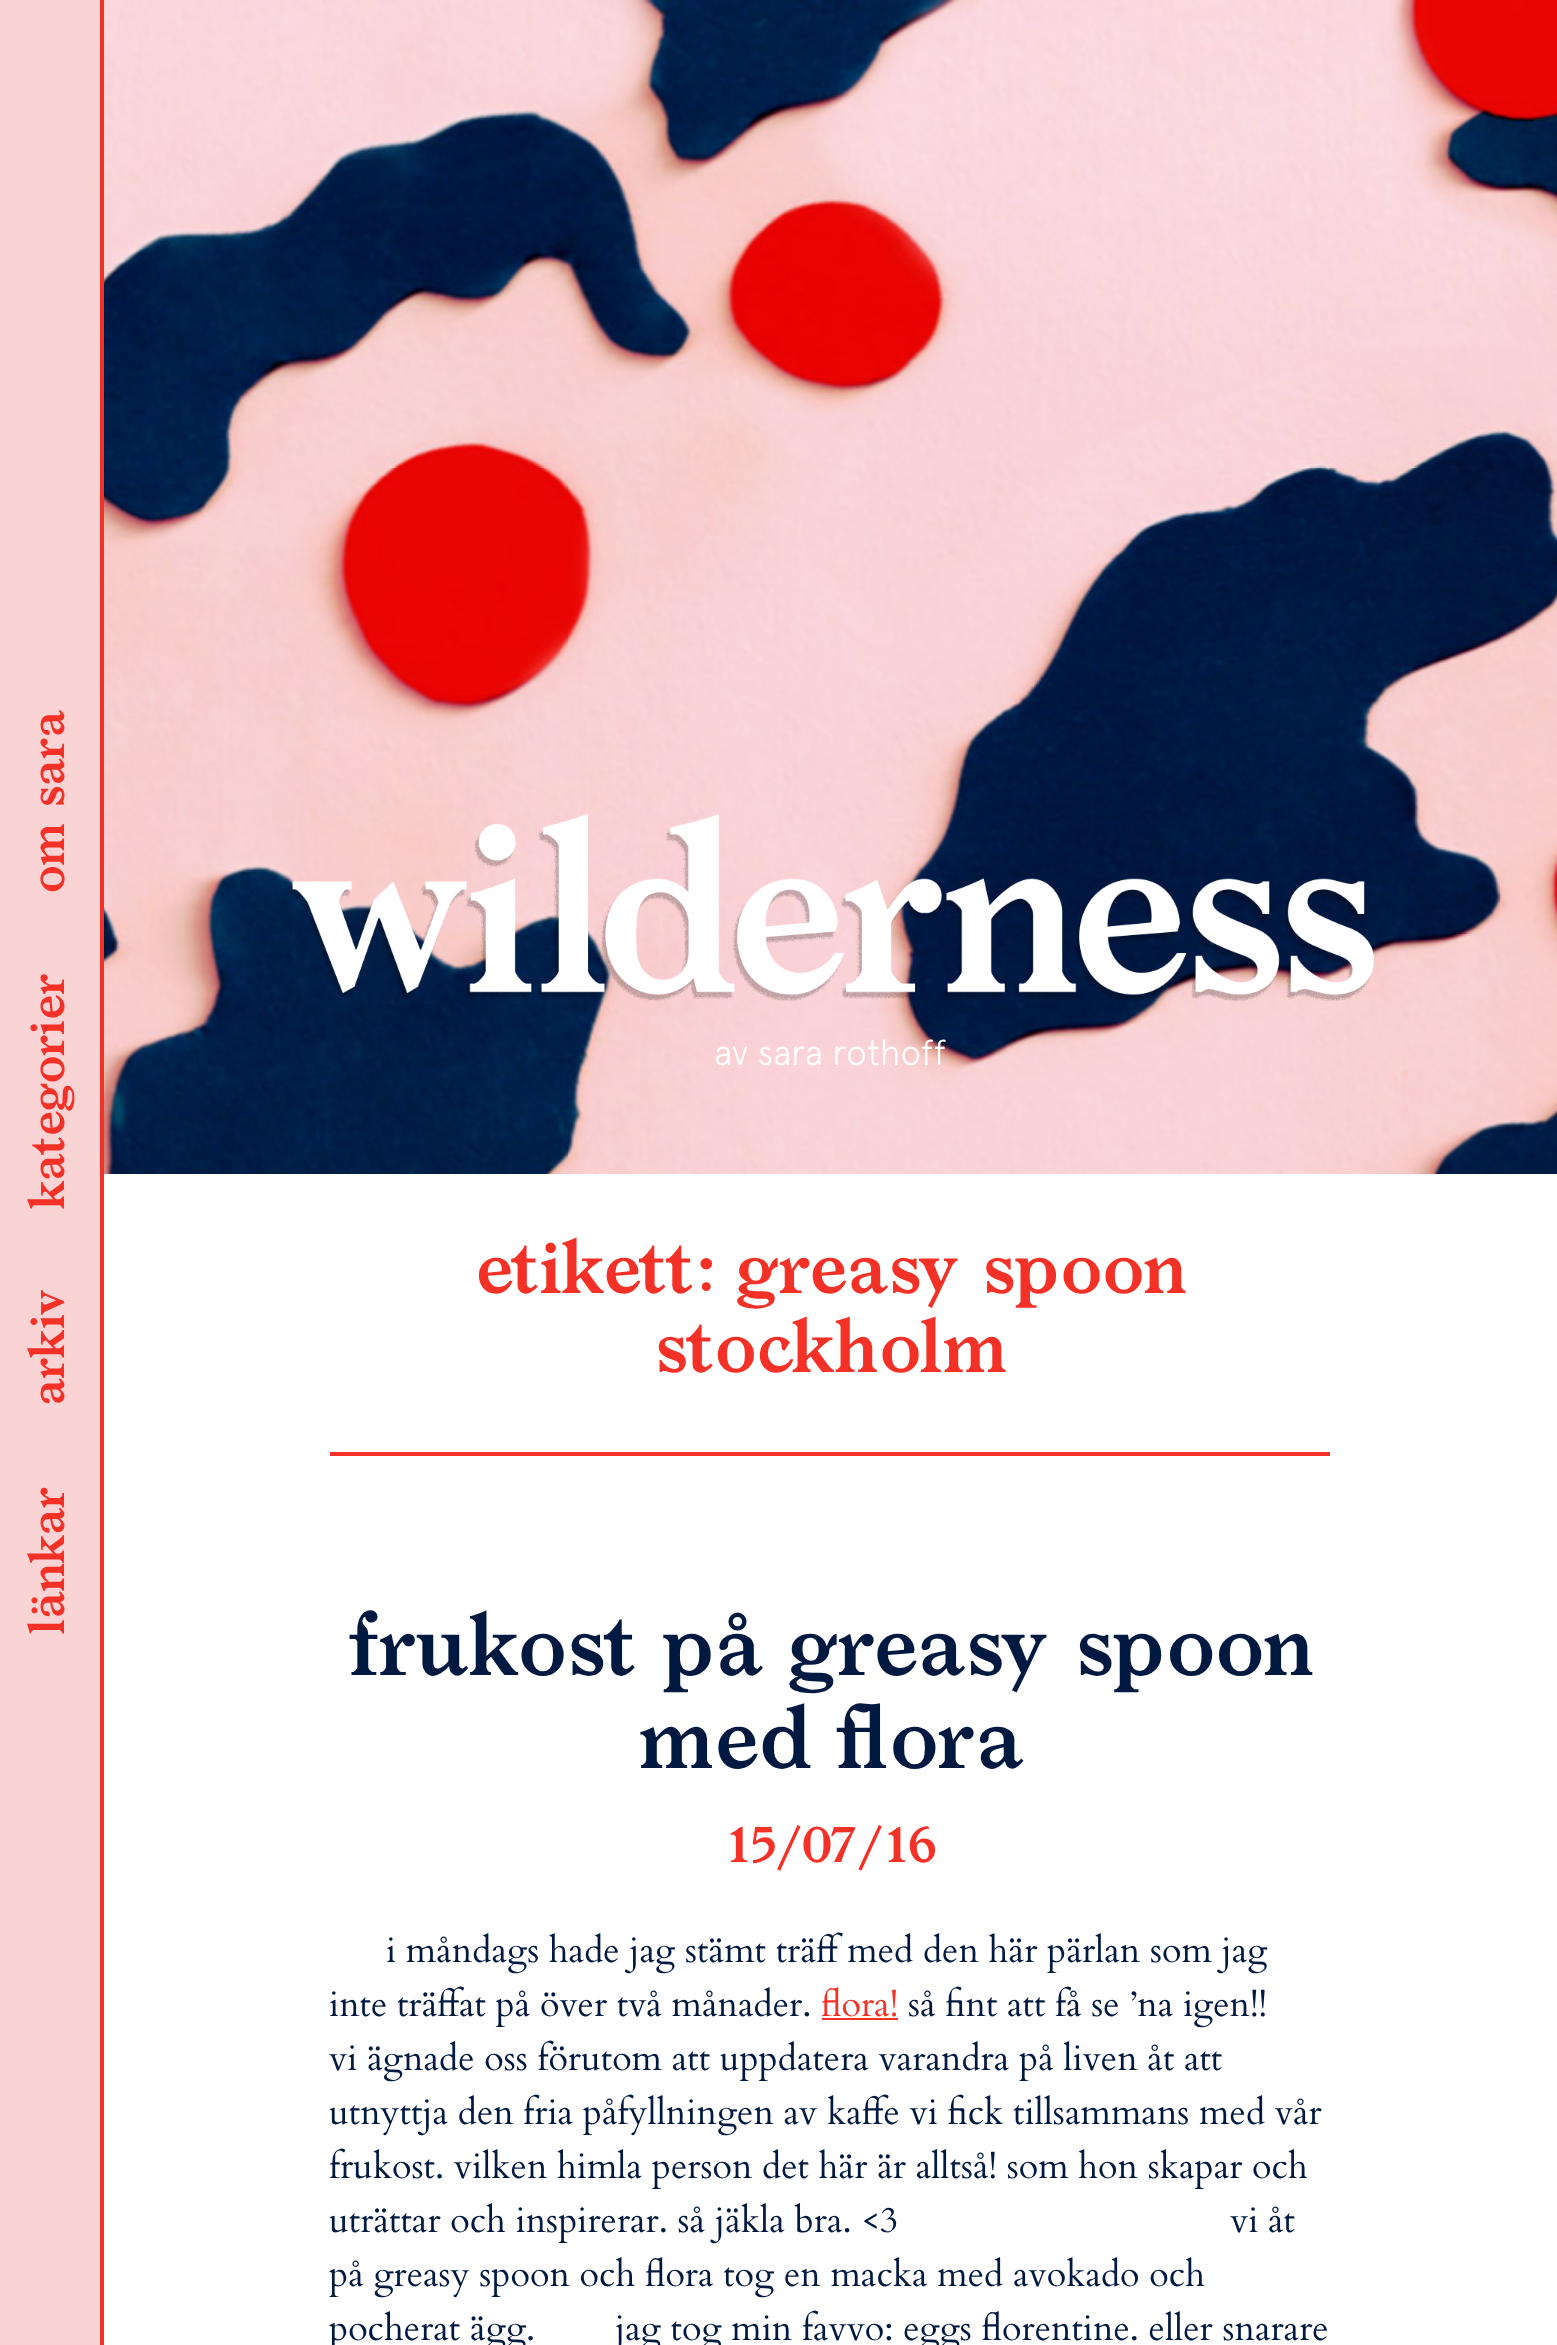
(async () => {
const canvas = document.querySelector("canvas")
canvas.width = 1557
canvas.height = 2345
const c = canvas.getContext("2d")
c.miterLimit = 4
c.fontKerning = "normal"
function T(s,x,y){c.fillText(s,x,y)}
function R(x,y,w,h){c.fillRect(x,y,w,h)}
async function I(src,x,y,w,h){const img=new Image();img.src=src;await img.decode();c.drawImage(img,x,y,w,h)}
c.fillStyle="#fff"
R(0,0,1557,2345)
c.fillStyle="#fad3d5"
R(0,0,100,2345)
c.fillStyle="#f43127"
R(100,0,4,2345)
c.font="600 48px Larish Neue"
c.save()
c.translate(64,895)
c.rotate(-90 * Math.PI / 180)
c.fillText("om sara",0,0)
c.restore()
c.save()
c.translate(64,1210)
c.rotate(-90 * Math.PI / 180)
c.fillText("kategorier",0,0)
c.restore()
c.save()
c.translate(64,1407)
c.rotate(-90 * Math.PI / 180)
c.fillText("arkiv",0,0)
c.restore()
c.save()
c.translate(64,1635)
c.rotate(-90 * Math.PI / 180)
c.fillText("länkar",0,0)
c.restore()
await I("1.png",104,0,1453,1174)
await I("2.png",288,814,1086,188)
c.font="300 36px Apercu"
c.fillStyle="#fff"
T("av sara rothoff",714,1065)
c.fillStyle="#f43127"
R(330,1452,1000,4)
c.font="600 72px Larish Neue"
T("etikett: greasy spoon",473,1293)
T("stockholm",652,1372)
c.font="600 84px Larish Neue"
c.fillStyle="#001941"
T("frukost på greasy spoon",347,1675)
T("med flora",637,1768)
c.font="600 48px Larish Neue"
c.fillStyle="#f43127"
T("15/07/16",724,1862)
c.font="36px Cardo"
c.fillStyle="#001941"
T("i måndags hade jag stämt träff med den här pärlan som jag",386,1962)
T("inte träffat på över två månader.",329,2016)
c.fillStyle="#f43127"
T("flora!",821,2016)
R(822,2018,76,2)
c.fillStyle="#001941"
T("så fint att få se ’na igen!!",908,2016)
T("vi ägnade oss förutom att uppdatera varandra på liven åt att",329,2070)
T("utnyttja den fria påfyllningen av kaffe vi fick tillsammans med vår",329,2124)
T("frukost. vilken himla person det här är alltså! som hon skapar och",329,2178)
T("uträttar och inspirerar. så jäkla bra. <3",329,2232)
T("vi åt",1230,2232)
T("på greasy spoon och flora tog en macka med avokado och",329,2286)
T("pocherat ägg.",329,2340)
T("jag tog min favvo: eggs florentine. eller snarare",615,2340)
})()
